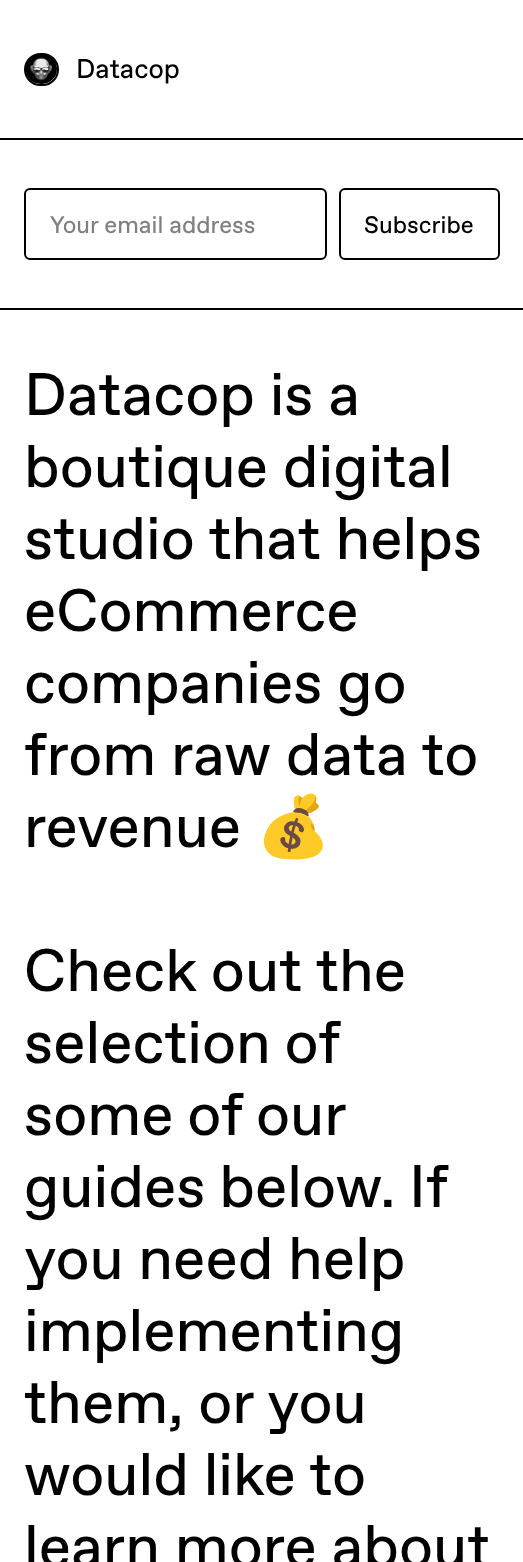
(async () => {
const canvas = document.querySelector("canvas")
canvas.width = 523
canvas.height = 1562
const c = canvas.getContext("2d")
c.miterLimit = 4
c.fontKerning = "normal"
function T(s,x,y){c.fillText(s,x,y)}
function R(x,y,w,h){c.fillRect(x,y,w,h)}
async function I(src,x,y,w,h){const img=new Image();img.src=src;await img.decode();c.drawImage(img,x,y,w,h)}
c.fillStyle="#fff"
R(0,0,523,1562)
c.fillStyle="#000"
R(0,138,523,2)
c.beginPath()
c.roundRect(25,54,33,31,15.5)
c.strokeStyle="#000"
c.lineWidth=2
c.stroke()
await I("1.png",26,55,31,29)
c.font="27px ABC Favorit"
T("Datacop",76,78)
R(0,308,523,2)
c.beginPath()
c.roundRect(25,189,301,70,5)
c.stroke()
c.font="24px ABC Favorit"
c.fillStyle="#808080"
T("Your email address",50,233)
c.beginPath()
c.roundRect(340,189,159,70,5)
c.stroke()
c.fillStyle="#000"
T("Subscribe",364,233)
c.font="60px ABC Favorit"
T("Datacop is a",24,415)
T("boutique digital",24,487)
T("studio that helps",24,559)
T("eCommerce",24,631)
T("companies go",24,703)
T("from raw data to",24,775)
T("revenue",24,847)
c.font="60px Noto Color Emoji"
T("💰",256,847)
c.font="60px ABC Favorit"
T("Check out the",24,991)
c.wordSpacing="-1px"
T("selection of",24,1063)
T("some of our",24,1135)
T("guides below. If",24,1207)
c.wordSpacing="0px"
T("you need help",24,1279)
T("implementing",24,1351)
T("them, or you",24,1423)
T("would like to",24,1495)
T("learn more about",24,1567)
})()
